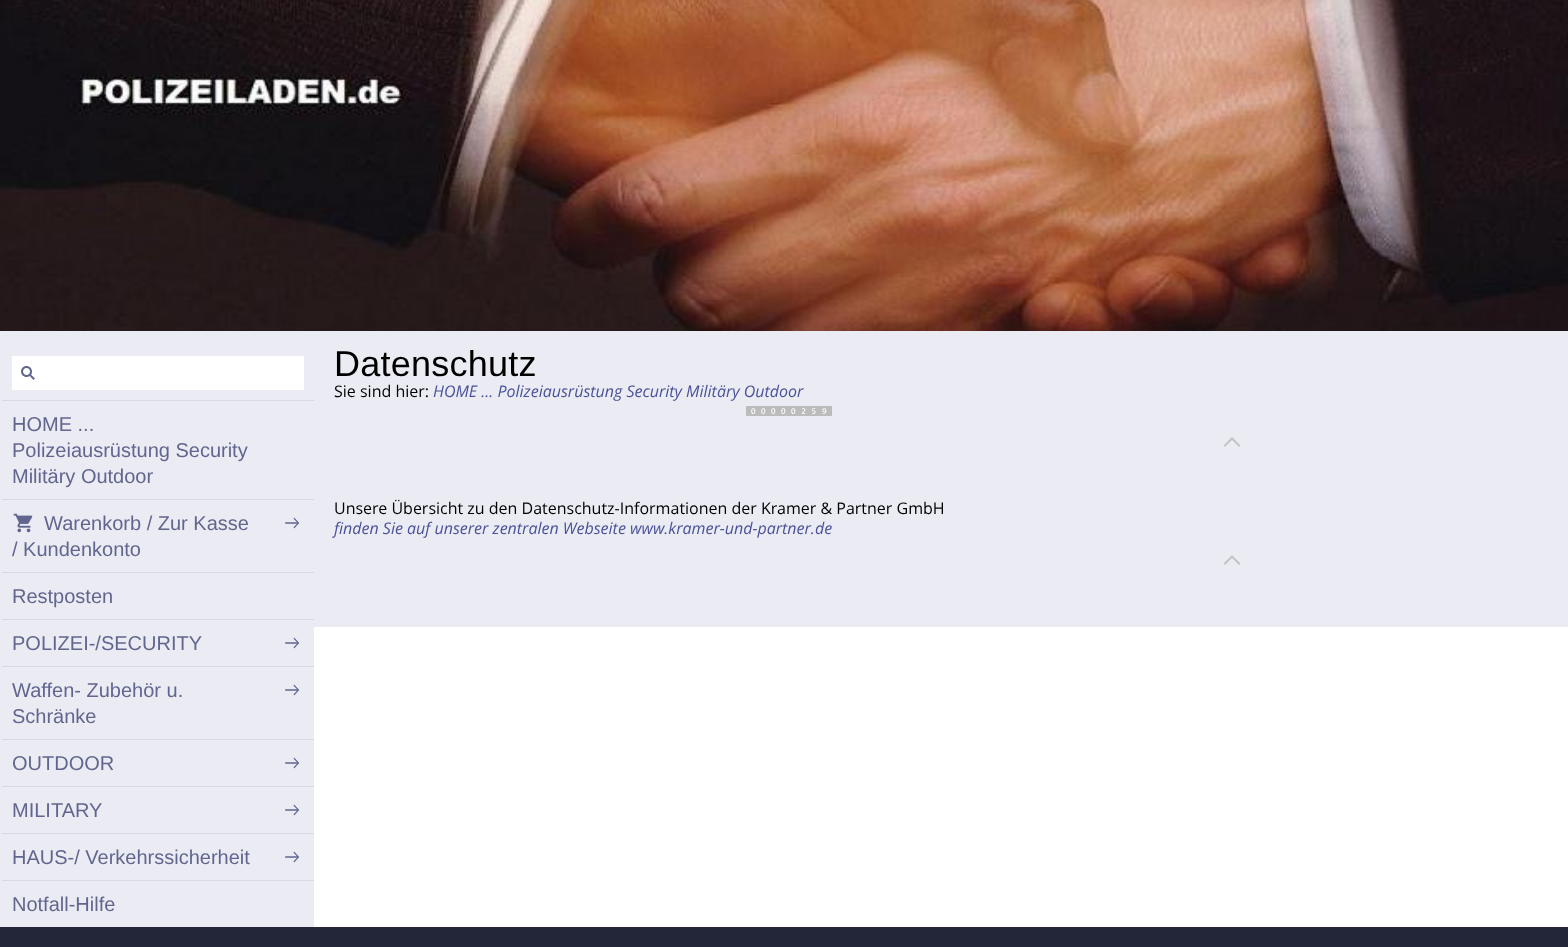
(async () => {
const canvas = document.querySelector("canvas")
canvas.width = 1568
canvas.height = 947
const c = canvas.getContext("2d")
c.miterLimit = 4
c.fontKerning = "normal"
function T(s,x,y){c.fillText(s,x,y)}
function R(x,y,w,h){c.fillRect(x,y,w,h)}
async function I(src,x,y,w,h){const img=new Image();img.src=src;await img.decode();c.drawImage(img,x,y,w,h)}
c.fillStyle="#fff"
R(0,0,1568,947)
await I("1.png",0,0,1568,331)
c.fillStyle="#ebecf3"
R(0,331,314,596)
c.fillStyle="#d9dae1"
R(2,400,312,1)
c.fillStyle="#fff"
R(12,356,292,34)
await I("2.png",21,366,14,14)
c.fillStyle="#d9dae1"
R(2,499,312,1)
c.font="20px Liberation Sans"
c.fillStyle="#62668f"
T("HOME ...",12,431)
T("Polizeiausrüstung Security",12,457)
T("Militäry Outdoor",12,483)
c.fillStyle="#d9dae1"
R(2,572,312,1)
await I("3.png",13,513,20,20)
c.fillStyle="#62668f"
T("Warenkorb / Zur Kasse",44,530)
T("/ Kundenkonto",12,556)
await I("4.png",285,517,14,12)
c.fillStyle="#d9dae1"
R(2,619,312,1)
c.fillStyle="#62668f"
T("Restposten",12,603)
c.fillStyle="#d9dae1"
R(2,666,312,1)
c.fillStyle="#62668f"
T("POLIZEI-/SECURITY",12,650)
await I("4.png",285,637,14,12)
c.fillStyle="#d9dae1"
R(2,739,312,1)
c.fillStyle="#62668f"
T("Waffen- Zubehör u.",12,697)
T("Schränke",12,723)
await I("4.png",285,684,14,12)
c.fillStyle="#d9dae1"
R(2,786,312,1)
c.fillStyle="#62668f"
T("OUTDOOR",12,770)
await I("5.png",285,757,14,12)
c.fillStyle="#d9dae1"
R(2,833,312,1)
c.fillStyle="#62668f"
T("MILITARY",12,817)
await I("4.png",285,804,14,12)
c.fillStyle="#d9dae1"
R(2,880,312,1)
c.fillStyle="#62668f"
T("HAUS-/ Verkehrssicherheit",12,864)
await I("4.png",285,851,14,12)
T("Notfall-Hilfe",12,911)
c.fillStyle="#ebecf3"
R(314,331,1254,296)
c.letterSpacing="0.25px"
c.font="36px Liberation Sans"
c.fillStyle="#000"
T("Datenschutz",334,376)
c.letterSpacing="0px"
c.font="16px Open Sans"
T("Sie sind hier:",334,397)
c.font="italic 16px Open Sans"
c.fillStyle="#4a5199"
T("HOME ... Polizeiausrüstung Security Militäry Outdoor",433,397)
await I("6.png",746,406,86,10)
await I("7.png",1223,437,18,10)
c.font="16px Open Sans"
c.fillStyle="#000"
T("Unsere Übersicht zu den Datenschutz-Informationen der Kramer & Partner GmbH",334,514)
c.font="italic 16px Open Sans"
c.fillStyle="#4a5199"
T("finden Sie auf unserer zentralen Webseite www.kramer-und-partner.de",334,534)
await I("7.png",1223,555,18,10)
c.fillStyle="#232638"
R(0,927,1568,20)
})()
